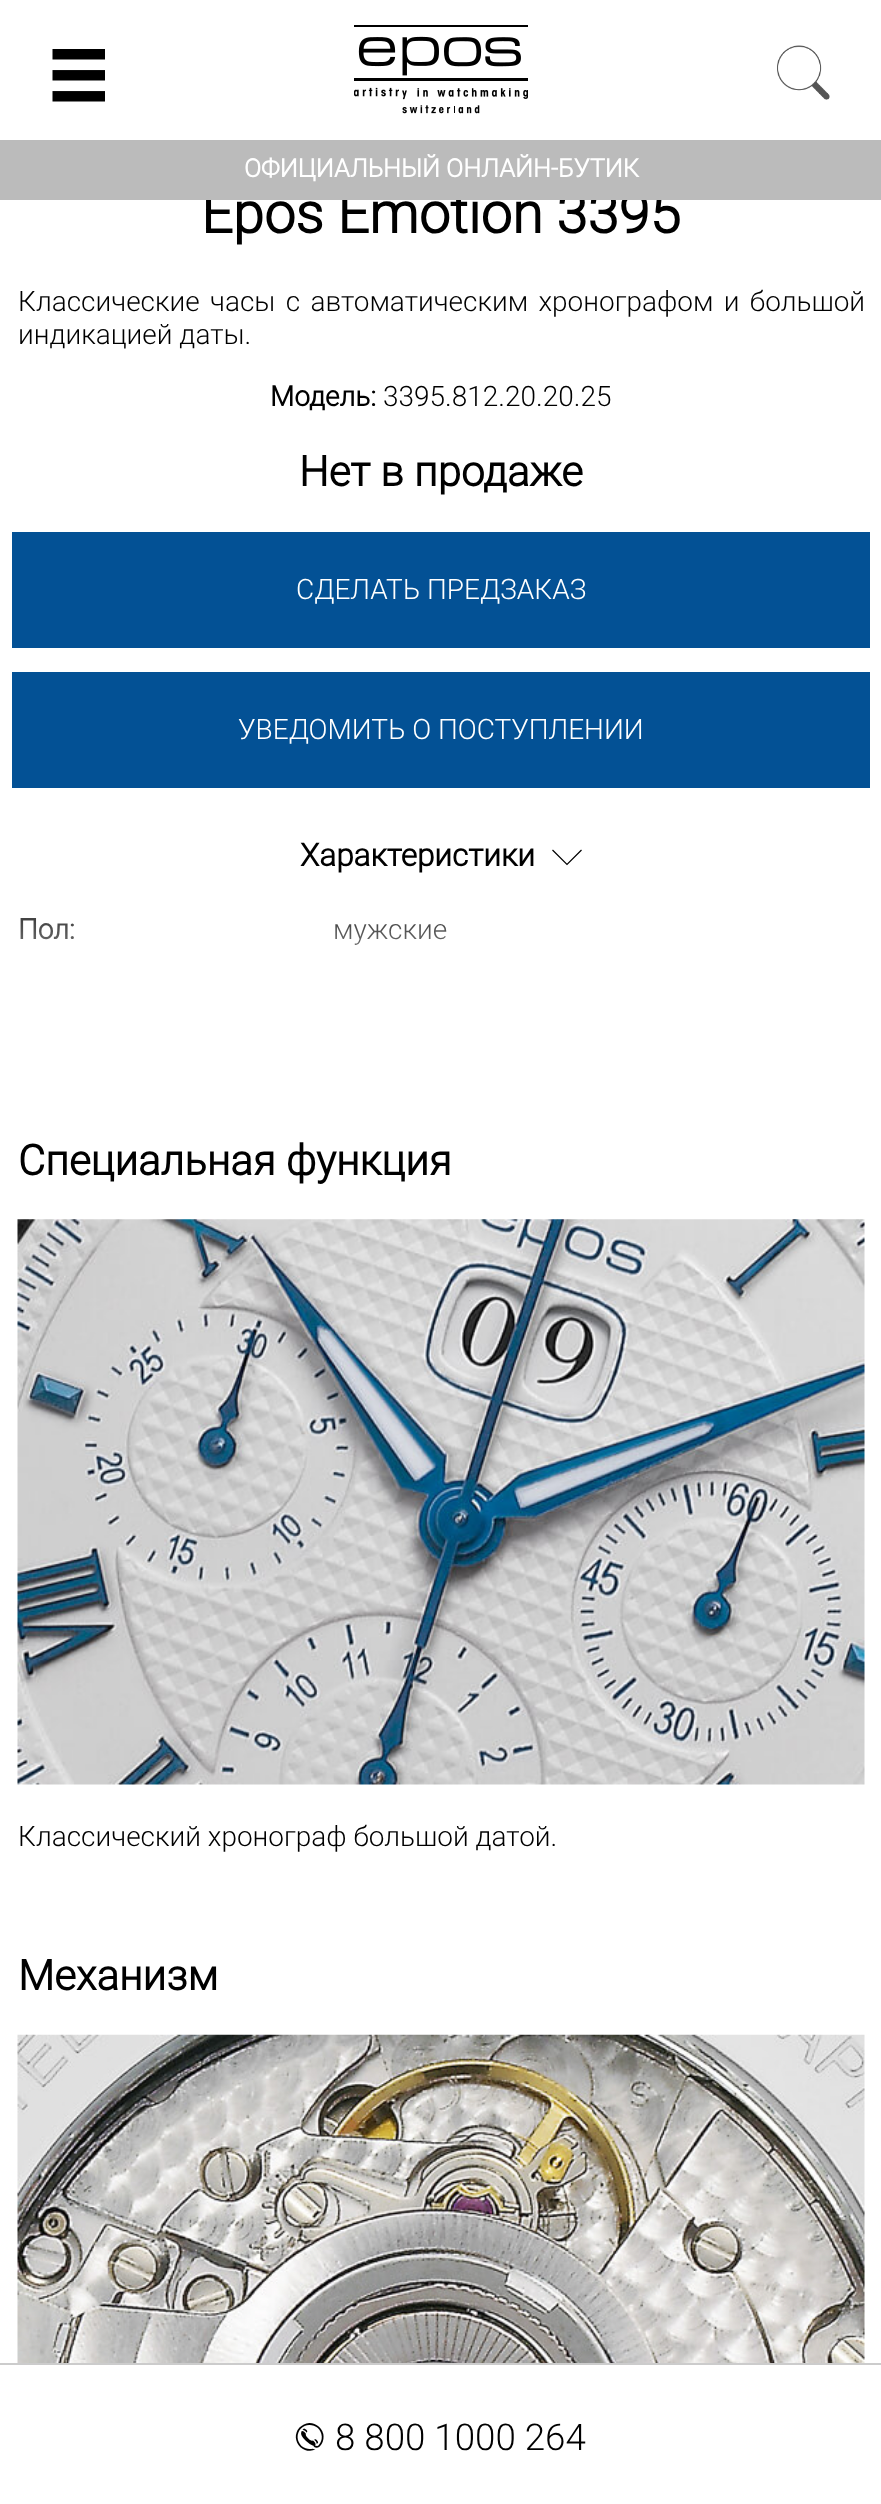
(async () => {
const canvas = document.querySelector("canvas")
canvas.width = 881
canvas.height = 2504
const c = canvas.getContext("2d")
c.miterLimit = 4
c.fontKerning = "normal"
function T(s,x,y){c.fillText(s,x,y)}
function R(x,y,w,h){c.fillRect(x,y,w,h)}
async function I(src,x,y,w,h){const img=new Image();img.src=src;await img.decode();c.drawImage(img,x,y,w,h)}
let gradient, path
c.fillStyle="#fff"
R(0,0,881,2504)
await I("1.png",52,49,53,53)
await I("2.png",777,45,53,55)
await I("3.png",354,25,174,89)
c.font="bold 56px Roboto"
c.fillStyle="#000"
T("Epos Emotion 3395",201,233)
c.fillStyle="#bbb"
R(0,140,881,60)
c.font="bold 25.25px Roboto"
c.fillStyle="#fff"
T("ОФИЦИАЛЬНЫЙ ОНЛАЙН-БУТИК",244,177)
c.wordSpacing="3.5px"
c.font="300 28px Roboto"
c.fillStyle="#000"
T("Классические часы с автоматическим хронографом и большой",18,311)
c.wordSpacing="0px"
T("индикацией даты.",18,344)
c.font="bold 28px Roboto"
T("Модель:",270,406)
c.font="300 28px Roboto"
T("3395.812.20.20.25",383,406)
c.font="bold 42px Roboto"
T("Нет в продаже",299,486)
c.fillStyle="#035195"
R(12,532,858,116)
c.font="300 28px Roboto"
c.fillStyle="#fff"
T("СДЕЛАТЬ ПРЕДЗАКАЗ",296,599)
c.fillStyle="#035195"
R(12,672,858,116)
c.fillStyle="#fff"
T("УВЕДОМИТЬ О ПОСТУПЛЕНИИ",238,739)
c.font="bold 31.5px Roboto"
c.fillStyle="#000"
T("Характеристики",300,866)
path = new Path2D("M552.5 850l14.5 14.5l14.5-14.5")
c.strokeStyle="#000"
c.lineWidth=1.2
c.stroke(path)
c.font="bold 28px Roboto"
T("Пол:",18,939)
c.font="300 28px Roboto"
T("мужские",333,939)
gradient = c.createLinearGradient(441,1036,441,879)
gradient.addColorStop(0,"#fff")
gradient.addColorStop(1,"#ffffff00")
c.fillStyle = gradient
R(20,919,426,26)
c.font="bold 42px Roboto"
c.fillStyle="#000"
T("Специальная функция",18,1175)
await I("4.png",17,1219,848,566)
c.font="300 28px Roboto"
T("Классический хронограф большой датой.",18,1846)
c.font="bold 42px Roboto"
T("Механизм",18,1990)
await I("5.png",17,2034,848,329)
c.fillStyle="#ccc"
R(0,2363,881,2)
c.font="36.75px DejaVu Sans"
c.fillStyle="#000"
c.save()
c.translate(317,2456)
c.rotate(-70 * Math.PI / 180)
c.fillText("✆",0,0)
c.restore()
c.font="300 36.75px Roboto"
T("8 800 1000 264",335,2450)
})()
